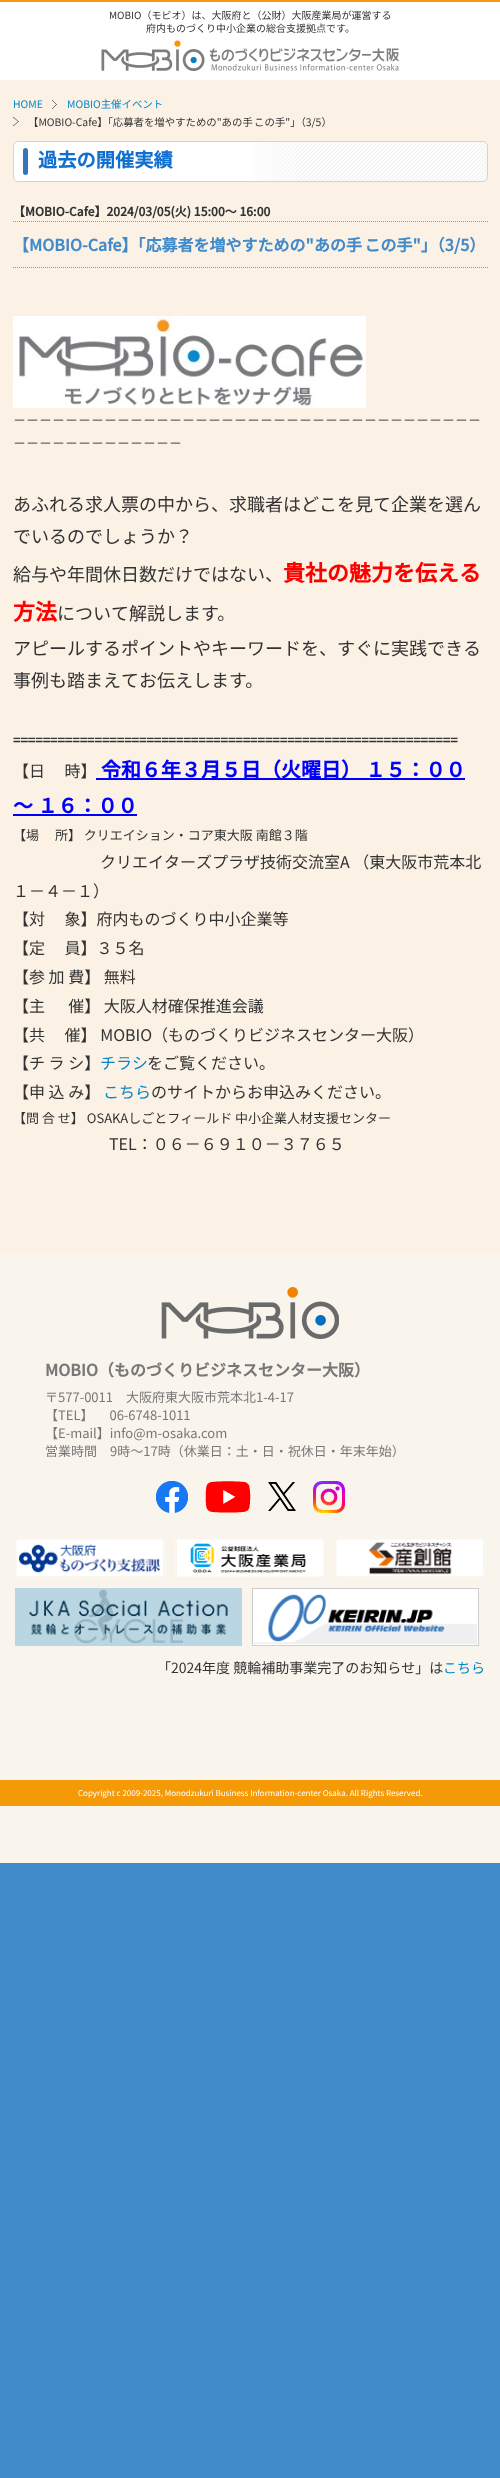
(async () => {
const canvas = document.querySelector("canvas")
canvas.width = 500
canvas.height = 2478
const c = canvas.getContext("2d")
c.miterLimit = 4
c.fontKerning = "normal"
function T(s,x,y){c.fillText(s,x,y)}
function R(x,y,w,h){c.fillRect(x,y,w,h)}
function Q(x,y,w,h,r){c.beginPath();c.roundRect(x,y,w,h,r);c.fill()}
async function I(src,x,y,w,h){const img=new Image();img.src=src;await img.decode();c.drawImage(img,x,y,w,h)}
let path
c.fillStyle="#428bca"
R(0,0,500,2478)
c.fillStyle="#fff"
R(0,2,500,78)
c.fillStyle="#f49a07"
R(0,0,500,2)
c.font="10px Noto Sans JP"
c.fillStyle="#333"
T("MOBIO（モビオ）は、大阪府と（公財）大阪産業局が運営する",109,19)
T("府内ものづくり中小企業の総合支援拠点です。",146,32)
await I("1.png",101,40,298,31)
c.fillStyle="#fbf1e4"
R(0,80,500,1172)
c.font="10.4px Noto Sans JP"
c.fillStyle="#0086c9"
T("HOME",13,108)
await I("2.png",52,100,5,9)
T("MOBIO主催イベント",67,108)
await I("3.png",13,117,6,9)
c.wordSpacing="-1px"
c.fillStyle="#333"
T("【MOBIO-Cafe】「応募者を増やすための\"あの手 この手\"」（3/5）",28,126)
c.fillStyle="#fff"
Q(13,141,475,41,5)
await I("4.png",255,141,232,41)
c.beginPath()
c.roundRect(13.5,141.5,474,40,4.5)
c.strokeStyle="#d2d2d2"
c.stroke()
c.fillStyle="#3476bb"
Q(23,148,5,27,2.5)
c.wordSpacing="0px"
c.font="bold 19.25px Noto Sans JP"
c.fillStyle="#1170cf"
T("過去の開催実績",38,167)
c.font="bold 12px Noto Sans JP"
c.fillStyle="#333"
T("【MOBIO-Cafe】2024/03/05(火) 15:00〜 16:00",13,216)
path = new Path2D("M13 221.5h475")
c.strokeStyle="#999"
c.setLineDash([1,1])
c.stroke(path)
path = new Path2D("M13 267.5h475")
c.stroke(path)
c.wordSpacing="-1px"
c.font="bold 16px Noto Sans JP"
c.fillStyle="#428bca"
T("【MOBIO-Cafe】「応募者を増やすための\"あの手 この手\"」（3/5）",13,251)
await I("5.png",13,316,353,92)
c.wordSpacing="0px"
c.font="13px Noto Sans JP"
c.fillStyle="#333"
T("－－－－－－－－－－－－－－－－－－－－－－－－－－－－－－－－－－－－",13,425)
T("－－－－－－－－－－－－－",13,448)
c.font="18px Noto Sans JP"
T("あふれる求人票の中から、求職者はどこを見て企業を選ん",13,511)
T("でいるのでしょうか？",13,543)
T("給与や年間休日数だけではない、",13,581)
c.font="bold 22px Noto Sans JP"
c.fillStyle="#f00"
T("貴社の魅力を伝える",283,581)
T("方法",13,620)
c.font="18px Noto Sans JP"
c.fillStyle="#333"
T("について解説します。",57,620)
T("アピールするポイントやキーワードを、すぐに実践できる",13,655)
T("事例も踏まえてお伝えします。",13,687)
c.font="bold 13px Noto Sans JP"
T("============================================================",13,745)
c.font="16px Noto Sans JP"
T("【日　 時】",13,777)
c.fillStyle="#00f"
R(96,778,369,2)
c.font="bold 20px Noto Sans JP"
T("令和６年３月５日（火曜日） １５：００",101,777)
T("～ １６：００",13,813)
R(13,814,124,2)
c.font="13px Noto Sans JP"
c.fillStyle="#333"
T("【場　 所】 クリエイション・コア東大阪 南館３階",13,840)
c.font="16px Noto Sans JP"
T("クリエイターズプラザ技術交流室A （東大阪市荒本北",100,868)
T("１－４－１）",13,897)
T("【対　 象】府内ものづくり中小企業等",13,925)
T("【定　 員】３５名",13,954)
T("【参 加 費】 無料",13,983)
T("【主 　 催】 大阪人材確保推進会議",13,1012)
T("【共　 催】 MOBIO（ものづくりビジネスセンター大阪）",13,1041)
T("【チ ラ シ】",13,1069)
c.fillStyle="#0086c9"
T("チラシ",100,1069)
c.fillStyle="#333"
T("をご覧ください。",147,1069)
T("【申 込 み】",13,1098)
c.fillStyle="#0086c9"
T("こちら",103,1098)
c.fillStyle="#333"
T("のサイトからお申込みください。",151,1098)
c.font="13px Noto Sans JP"
T("【問 合 せ】 OSAKAしごとフィールド 中小企業人材支援センター",13,1123)
c.font="16px Noto Sans JP"
T("TEL：０６－６９１０－３７６５",109,1150)
c.fillStyle="#f9f4ec"
R(0,1252,500,611)
await I("6.png",161,1287,178,52)
c.font="bold 16px Noto Sans JP"
c.fillStyle="#787878"
T("MOBIO（ものづくりビジネスセンター大阪）",45,1376)
c.font="13px Noto Sans JP"
T("〒577-0011　大阪府東大阪市荒本北1-4-17",45,1402)
T("【TEL】  06-6748-1011",45,1420)
T("【E-mail】info@m-osaka.com",45,1438)
T("営業時間　9時～17時（休業日：土・日・祝休日・年末年始）",45,1456)
await I("7.png",156,1481,32,32)
await I("8.png",205,1481,46,32)
await I("9.png",268,1482,28,29)
await I("10.png",313,1481,32,32)
await I("11.png",15,1538,150,40)
await I("12.png",175,1538,149,40)
await I("13.png",335,1538,150,40)
await I("14.png",15,1588,227,58)
await I("15.png",252,1588,227,58)
c.font="14px Noto Sans JP"
c.fillStyle="#333"
T("「2024年度 競輪補助事業完了のお知らせ」は",157,1673)
c.fillStyle="#0086c9"
T("こちら",443,1673)
c.fillStyle="#f49a07"
R(0,1780,500,26)
c.font="8px Noto Sans JP"
c.fillStyle="#fff"
T("Copyright c 2009-2025, Monodzukuri Business Information-center Osaka. All Rights Reserved.",78,1796)
})()
